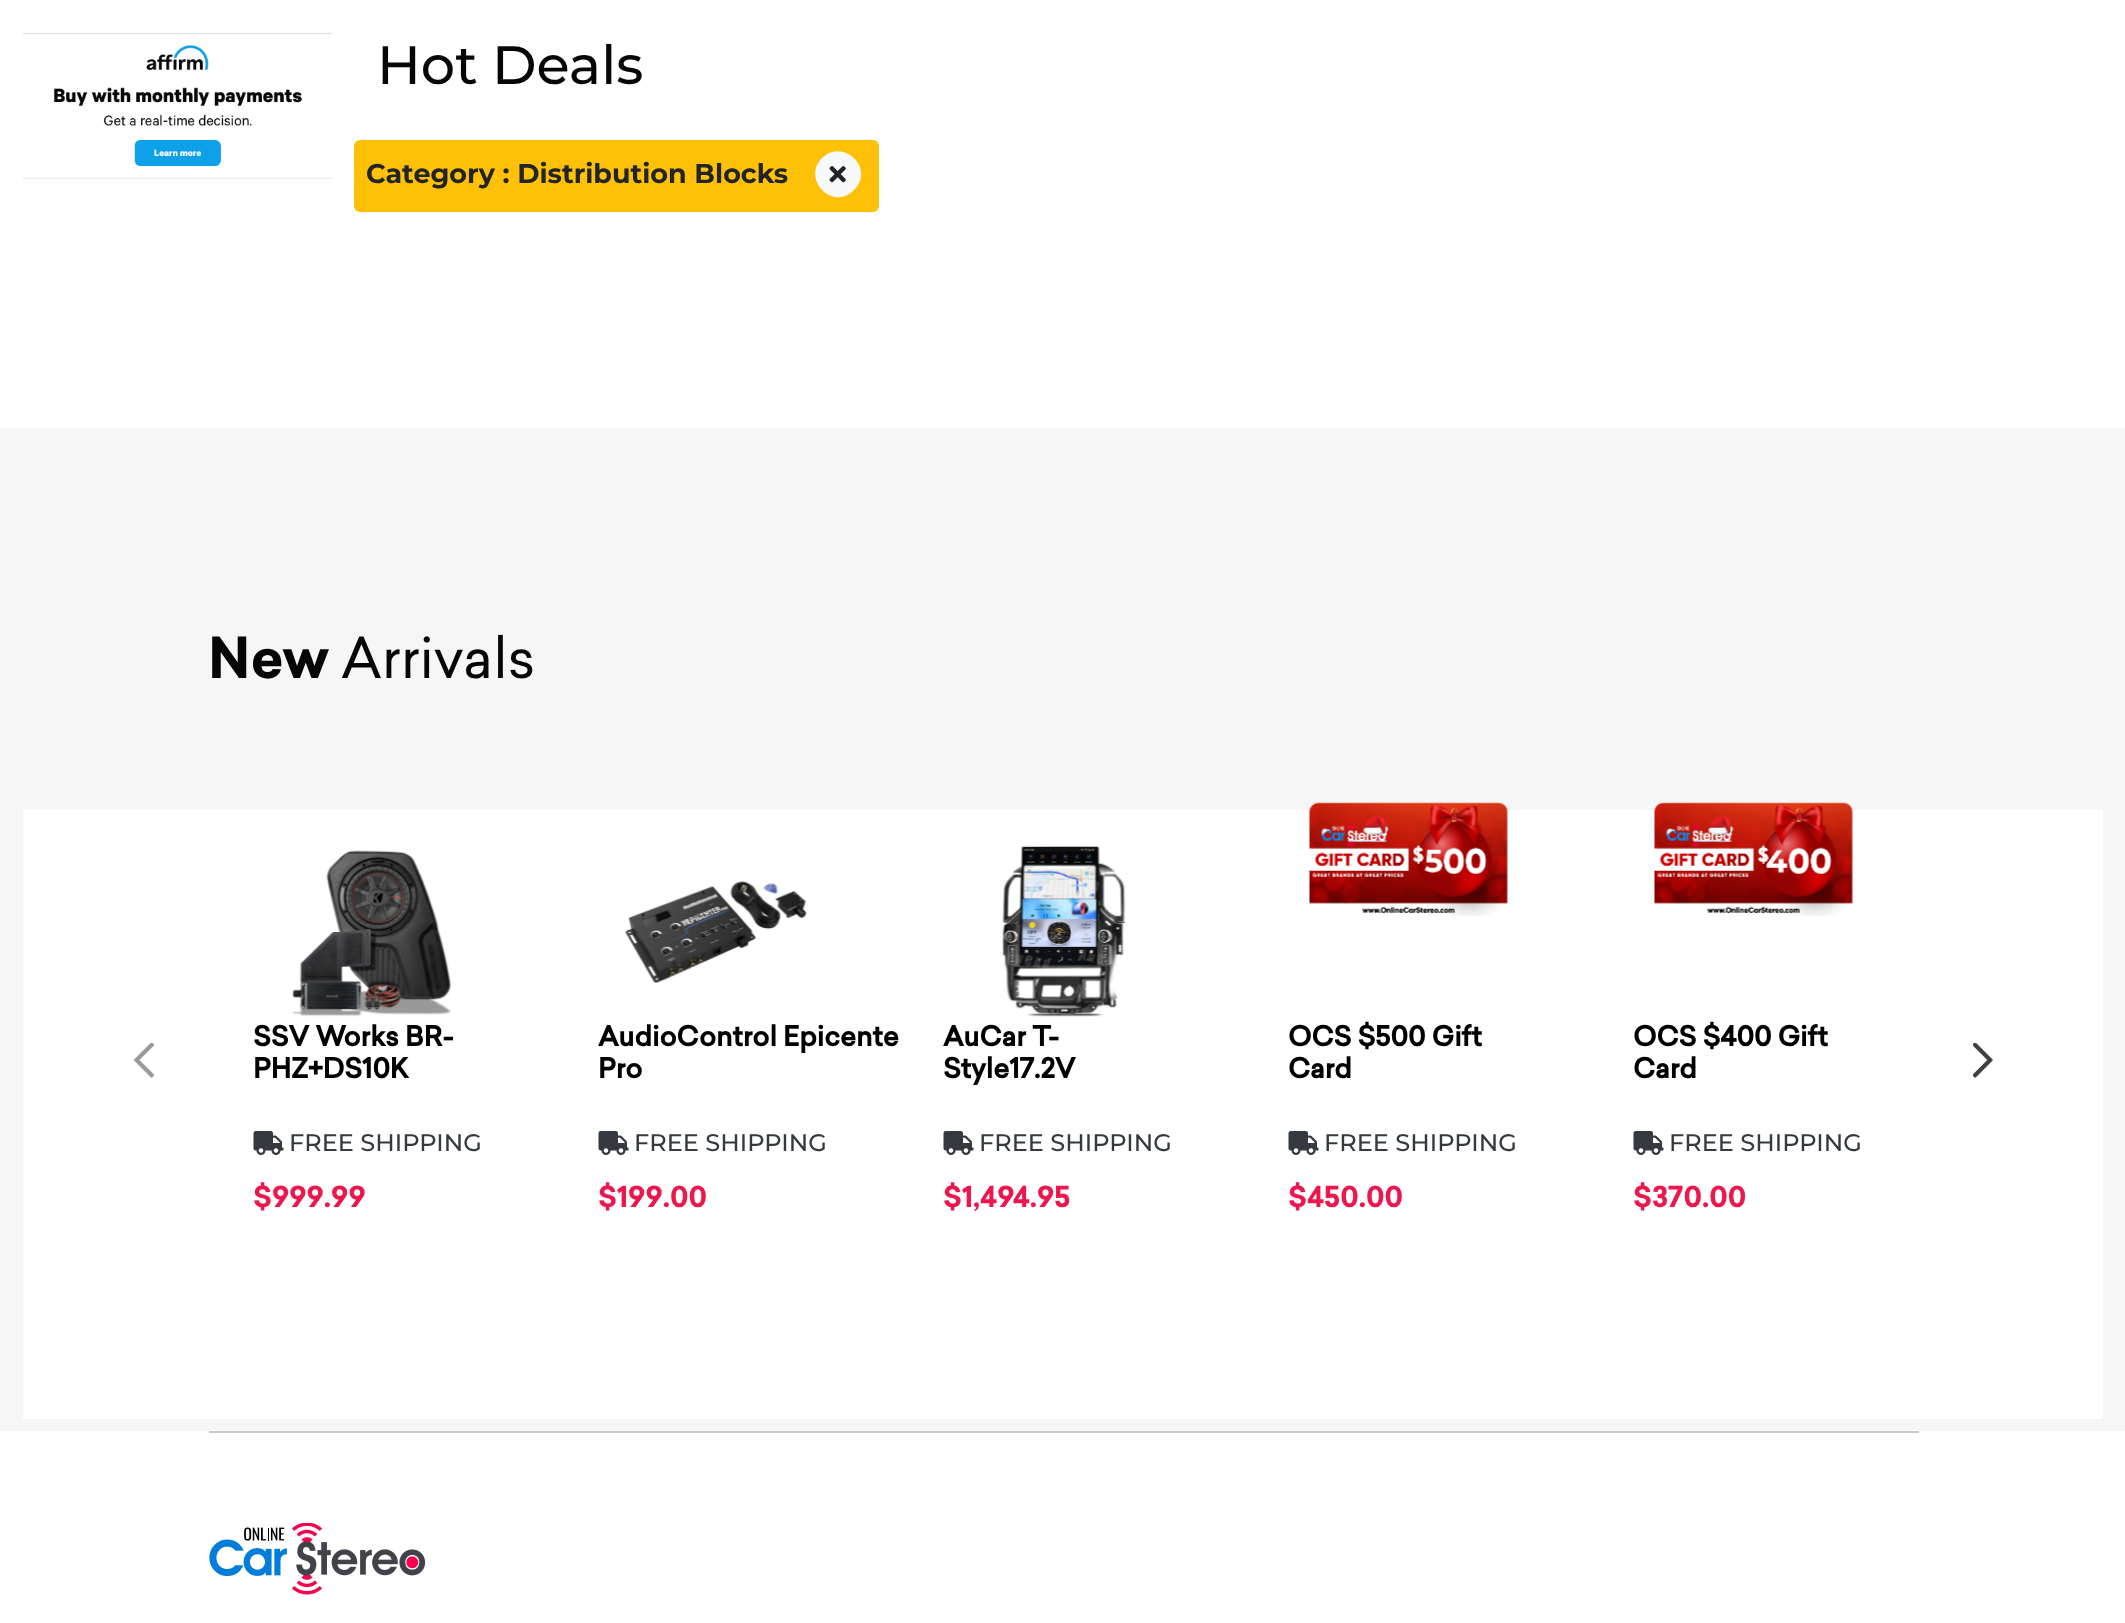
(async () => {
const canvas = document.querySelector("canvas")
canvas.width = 2125
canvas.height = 1623
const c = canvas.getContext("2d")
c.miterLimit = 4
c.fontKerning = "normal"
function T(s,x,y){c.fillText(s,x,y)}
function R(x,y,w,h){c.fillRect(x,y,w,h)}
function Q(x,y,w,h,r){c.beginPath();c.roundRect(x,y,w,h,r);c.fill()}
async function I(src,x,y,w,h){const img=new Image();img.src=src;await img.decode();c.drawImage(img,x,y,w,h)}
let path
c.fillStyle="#f6f6f6"
R(0,0,2125,1623)
c.fillStyle="#fff"
R(0,0,2125,428)
await I("1.png",22,33,310,146)
c.font="500 54px Montserrat"
c.fillStyle="#060606"
T("Hot Deals",377,84)
c.fillStyle="#ffc107"
Q(354,140,525,72,6)
c.font="bold 27px Montserrat"
c.fillStyle="#212529"
T("Category : Distribution Blocks",366,183)
c.fillStyle="#f8f9fa"
path = new Path2D("M822 158c21-21 54 11 32 32c-21 22-53-11-32-32z")
c.fill(path)
await I("2.png",829,166,17,17)
c.font="bold 55.5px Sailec"
c.fillStyle="#060606"
T("New",208,678)
c.font="55.5px Sailec"
T("Arrivals",341,678)
c.fillStyle="#fff"
R(23,810,2080,609)
await I("3.png",292,850,160,167)
c.font="bold 27px 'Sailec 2'"
c.fillStyle="#000"
T("SSV Works BR-",253,1046)
T("PHZ+DS10K",253,1078)
await I("4.png",253,1131,31,24)
c.font="500 24px Montserrat"
c.fillStyle="#343a40"
T("FREE SHIPPING",289,1151)
c.font="bold 28.5px Sailec"
c.fillStyle="#ed174e"
T("$999.99",253,1207)
await I("5.png",625,881,183,103)
c.font="bold 27px 'Sailec 2'"
c.fillStyle="#000"
T("AudioControl Epicente",598,1046)
T("Pro",598,1078)
await I("4.png",598,1131,31,24)
c.font="500 24px Montserrat"
c.fillStyle="#343a40"
T("FREE SHIPPING",634,1151)
c.font="bold 28.5px Sailec"
c.fillStyle="#ed174e"
T("$199.00",598,1207)
await I("6.png",1002,843,124,174)
c.font="bold 27px 'Sailec 2'"
c.fillStyle="#000"
T("AuCar T-",943,1046)
T("Style17.2V",943,1078)
await I("4.png",943,1131,31,24)
c.font="500 24px Montserrat"
c.fillStyle="#343a40"
T("FREE SHIPPING",979,1151)
c.font="bold 28.5px Sailec"
c.fillStyle="#ed174e"
T("$1,494.95",943,1207)
await I("7.png",1309,802,199,114)
c.font="bold 27px 'Sailec 2'"
c.fillStyle="#000"
T("OCS $500 Gift",1288,1046)
T("Card",1288,1078)
await I("4.png",1288,1131,31,24)
c.font="500 24px Montserrat"
c.fillStyle="#343a40"
T("FREE SHIPPING",1324,1151)
c.font="bold 28.5px Sailec"
c.fillStyle="#ed174e"
T("$450.00",1288,1207)
await I("8.png",1654,802,199,114)
c.font="bold 27px 'Sailec 2'"
c.fillStyle="#000"
T("OCS $400 Gift",1633,1046)
T("Card",1633,1078)
await I("4.png",1633,1131,31,24)
c.font="500 24px Montserrat"
c.fillStyle="#343a40"
T("FREE SHIPPING",1669,1151)
c.font="bold 28.5px Sailec"
c.fillStyle="#ed174e"
T("$370.00",1633,1207)
await I("9.png",134,1043,21,35)
await I("10.png",1973,1043,20,35)
c.fillStyle="#fff"
R(0,1431,2125,192)
c.fillStyle="#c6cacd"
R(209,1431,1710,2)
await I("11.png",209,1523,217,72)
})()
